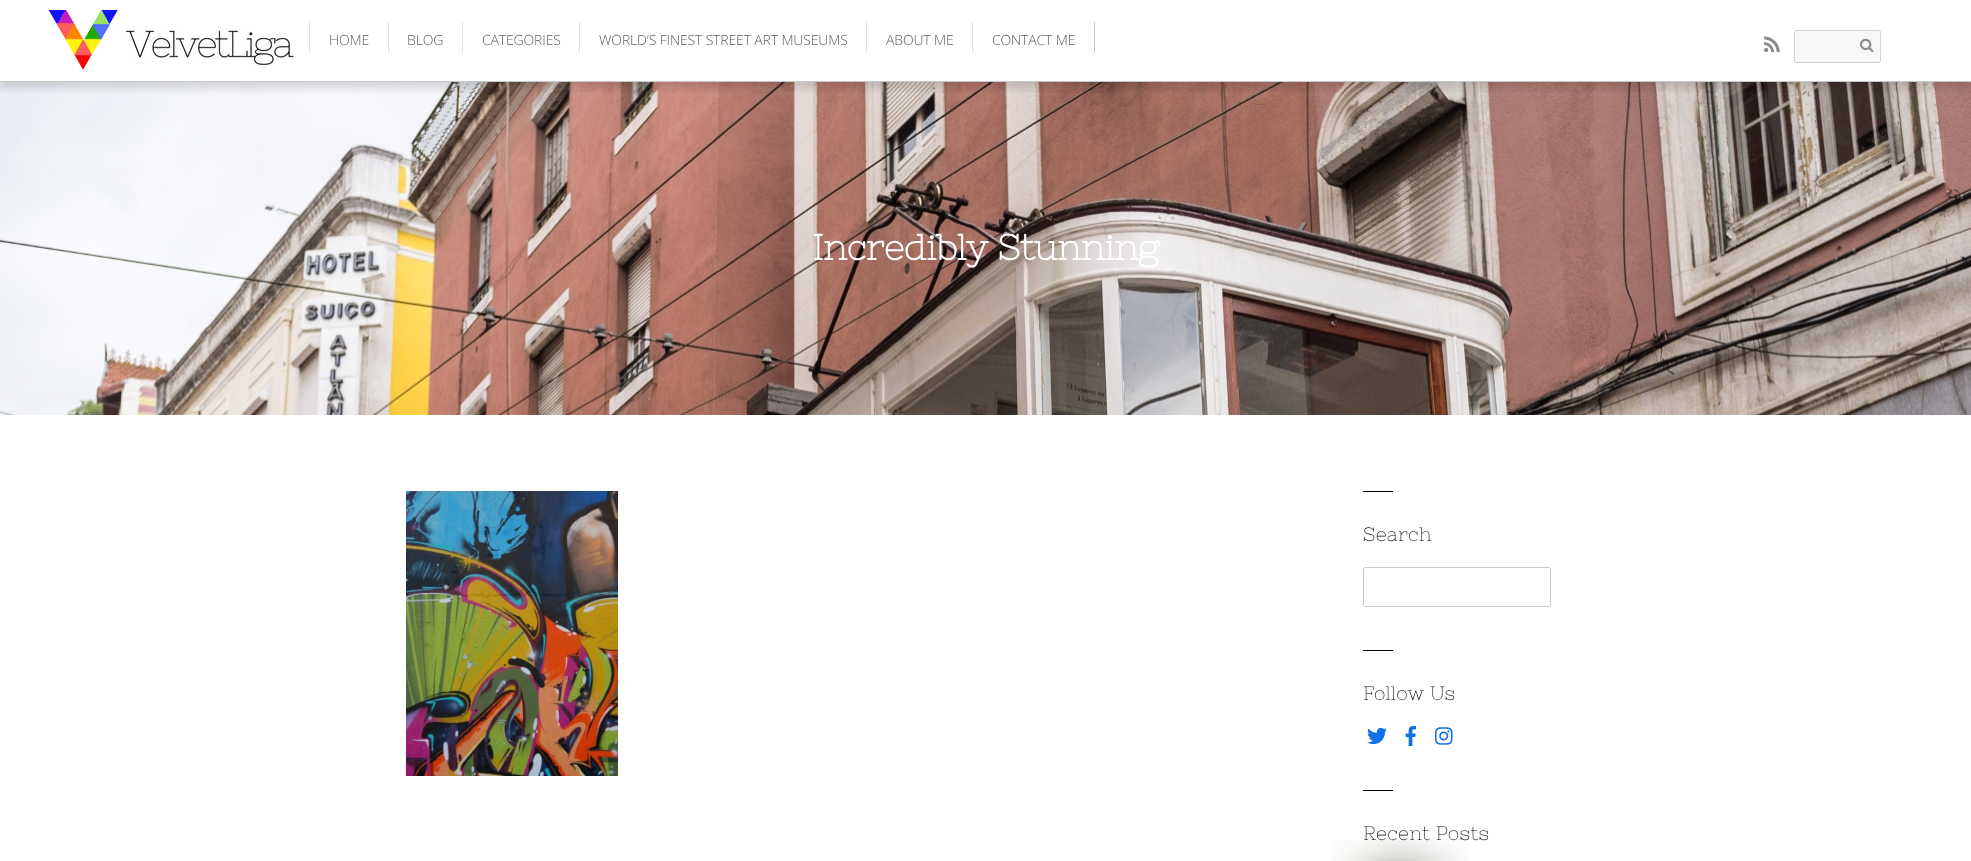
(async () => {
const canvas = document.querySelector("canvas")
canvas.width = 1971
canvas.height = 861
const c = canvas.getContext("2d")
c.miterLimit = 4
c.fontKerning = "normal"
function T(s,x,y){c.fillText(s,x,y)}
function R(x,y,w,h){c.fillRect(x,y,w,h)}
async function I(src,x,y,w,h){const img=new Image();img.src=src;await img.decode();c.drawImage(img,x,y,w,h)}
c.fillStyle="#fff"
R(0,0,1971,861)
await I("4.png",0,82,1971,333)
c.save()
c.beginPath()
c.rect(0,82,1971,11)
c.clip()
c.fillStyle="#00000024"
c.filter="blur(5px)"
c.beginPath()
c.rect(0,6,1971,82)
c.fill()
c.filter="none"
c.restore()
c.fillStyle="#c6c7c7"
R(0,81,1971,1)
await I("1.png",49,10,245,60)
c.fillStyle="#e2e2e2"
R(309,22,1,31)
c.letterSpacing="-0.15px"
c.font="300 14px Open Sans"
c.fillStyle="#5a5e61"
T("HOME",329,45)
c.fillStyle="#e2e2e2"
R(388,22,1,31)
c.fillStyle="#5a5e61"
T("BLOG",407,45)
c.fillStyle="#e2e2e2"
R(462,22,1,31)
c.fillStyle="#5a5e61"
T("CATEGORIES",482,45)
c.fillStyle="#e2e2e2"
R(579,22,1,31)
c.fillStyle="#5a5e61"
T("WORLD’S FINEST STREET ART MUSEUMS",599,45)
c.fillStyle="#e2e2e2"
R(866,22,1,31)
c.fillStyle="#5a5e61"
T("ABOUT ME",886,45)
c.fillStyle="#c5c5c5"
R(1094,22,1,31)
c.fillStyle="#e2e2e2"
R(972,22,1,31)
c.fillStyle="#5a5e61"
T("CONTACT ME",992,45)
await I("2.png",1764,36,16,17)
c.fillStyle="#f7f7f7"
c.beginPath()
c.roundRect(1794.5,30.5,86,32,1.5)
c.fill()
c.strokeStyle="#d2d2d2"
c.stroke()
await I("3.png",1860,38,14,15)
c.letterSpacing="-0.4px"
c.font="bold 36px Nixie One"
c.fillStyle="#fff"
T("Incredibly Stunning",812,260)
await I("5.png",406,491,212,285)
c.fillStyle="#000"
R(1363,491,30,1)
c.letterSpacing="0.25px"
c.font="19.25px Nixie One"
T("Search",1363,541)
c.beginPath()
c.roundRect(1363.5,567.5,187,39,1.5)
c.strokeStyle="#c9caca"
c.stroke()
R(1363,650,30,1)
T("Follow Us",1363,700)
await I("6.png",1367,727,20,18)
await I("7.png",1405,726,11,20)
await I("8.png",1435,727,18,18)
R(1363,790,30,1)
T("Recent Posts",1363,840)
await I("9.png",1332,840,136,21)
})()
